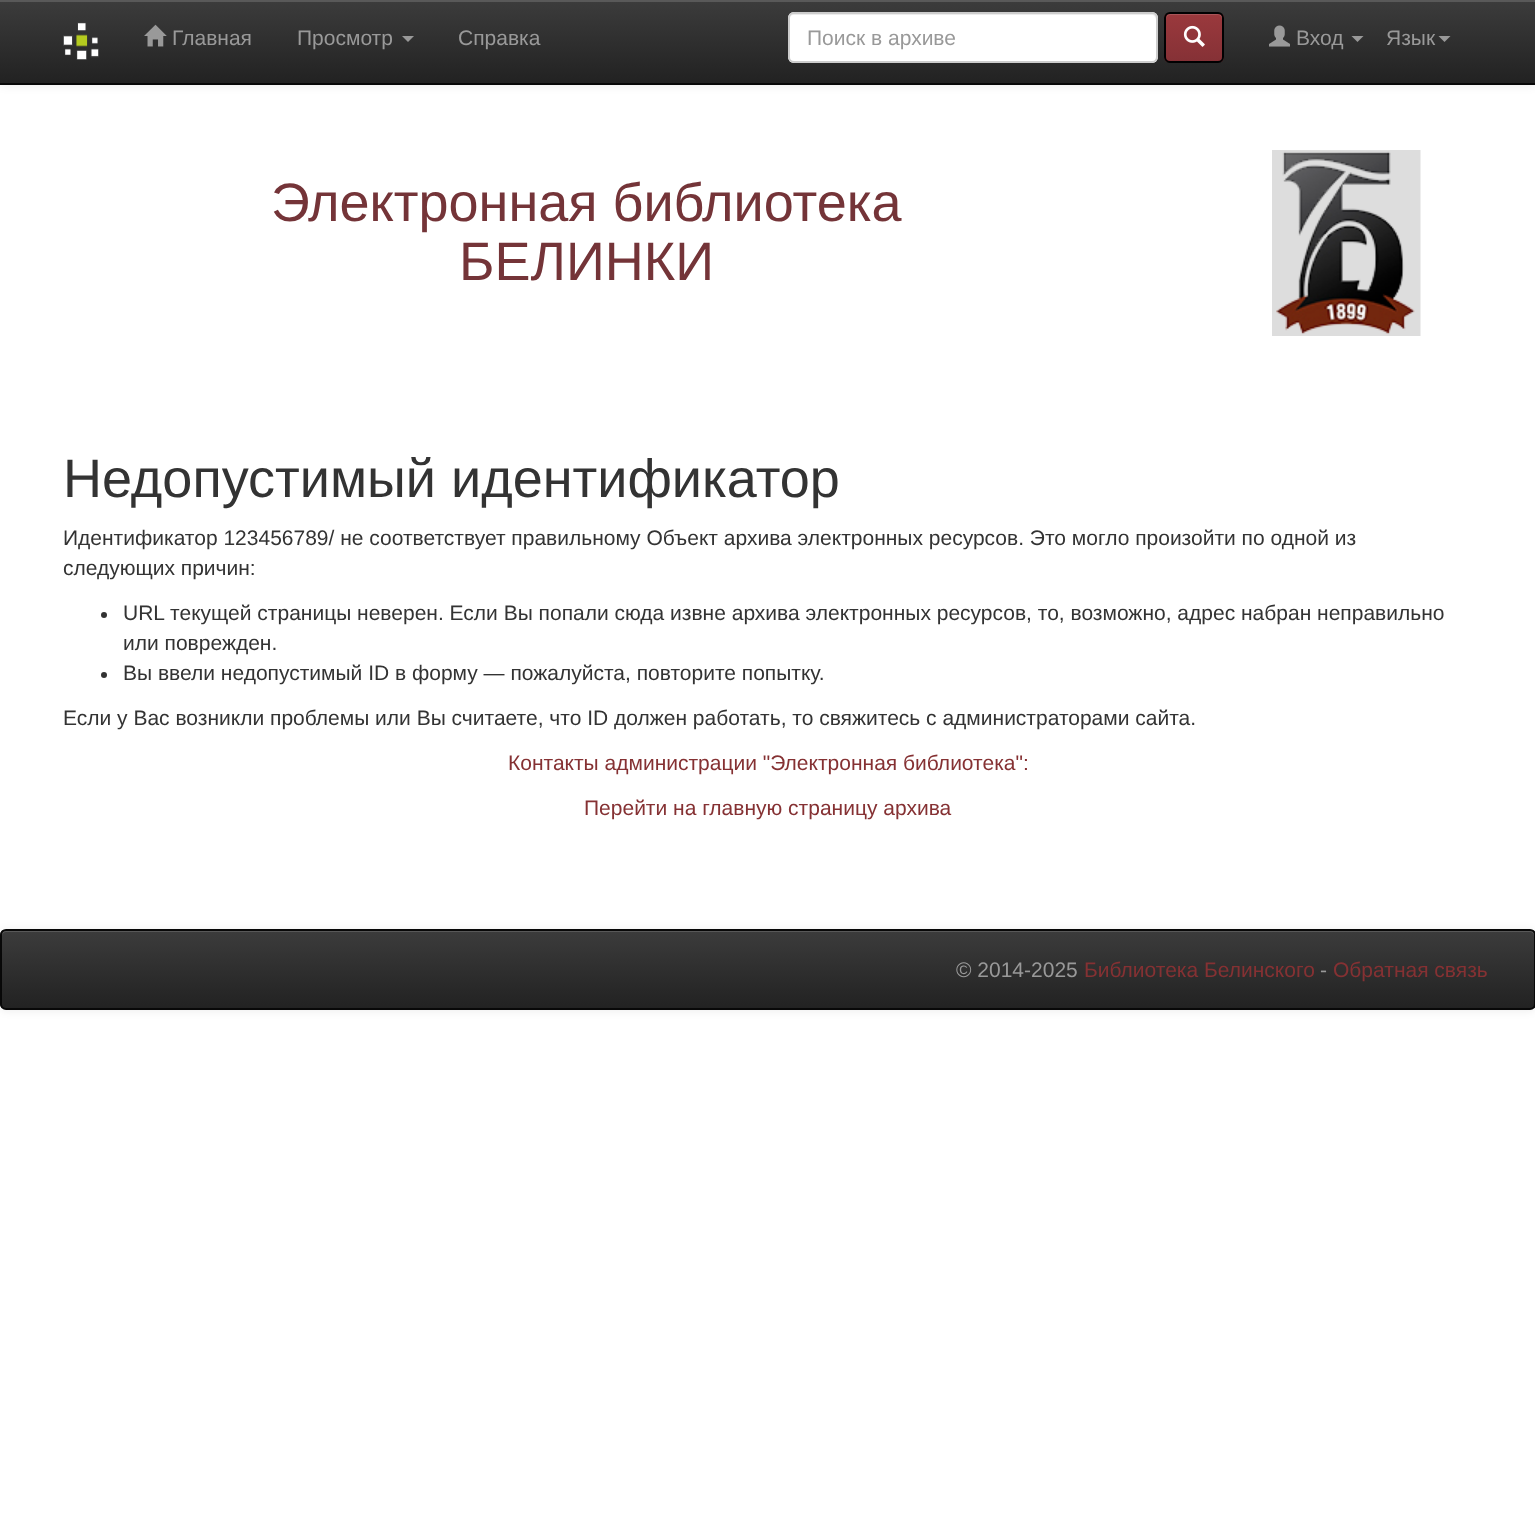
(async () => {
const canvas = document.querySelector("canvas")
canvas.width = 1535
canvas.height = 1521
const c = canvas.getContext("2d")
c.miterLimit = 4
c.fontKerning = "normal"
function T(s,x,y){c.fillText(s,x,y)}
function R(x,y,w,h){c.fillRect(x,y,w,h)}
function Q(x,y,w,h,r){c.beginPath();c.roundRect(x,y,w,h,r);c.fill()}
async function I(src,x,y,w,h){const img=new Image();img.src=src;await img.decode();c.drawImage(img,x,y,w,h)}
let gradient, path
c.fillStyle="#fff"
R(0,0,1535,1521)
c.fillStyle="#00000012"
c.filter="blur(4px)"
c.beginPath()
c.rect(0,2,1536,84)
c.fill()
c.filter="none"
gradient = c.createLinearGradient(768,0,768,83)
gradient.addColorStop(0,"#3c3c3c")
gradient.addColorStop(1,"#222")
c.fillStyle = gradient
R(0,2,1535,81)
c.fillStyle="#595959"
R(0,0,1535,2)
c.fillStyle="#080808"
R(0,83,1535,2)
await I("1.png",63,22,36,38)
await I("2.png",144,24,23,23)
c.font="21px Liberation Sans"
c.fillStyle="#999"
T("Главная",172,45)
T("Просмотр",297,45)
path = new Path2D("M402 36h12l-6 6z")
c.fill(path)
T("Справка",458,45)
c.fillStyle="#fff"
Q(788,12,370,51,6)
c.fillStyle="#ececec"
path = new Path2D("M794 15h358c2 0 4 2 4 5v38l-1 3c1-1 2-3 2-4v-38c0-3-2-5-5-5h-358c-3 0-5 2-5 5v1c0-3 2-5 5-5z")
c.fill(path)
c.beginPath()
c.roundRect(789,13,368,49,5)
c.strokeStyle="#ccc"
c.lineWidth=2
c.stroke()
c.fillStyle="#999"
T("Поиск в архиве",807,45)
c.save()
c.beginPath()
c.roundRect(1164,12,60,51,6)
c.clip()
gradient = c.createLinearGradient(1194,13,1194,62)
gradient.addColorStop(0,"#9b393d")
gradient.addColorStop(1,"#853136")
c.fillStyle = gradient
R(1164,14,60,48)
c.restore()
c.fillStyle="#ffffff26"
path = new Path2D("M1170 15h48c2 0 4 2 4 5v38l-1 3c3-3 2-7 2-10v-13c0-26 5-24-21-24h-23c-6 0-13-2-13 6c0-3 2-5 4-5z")
c.fill(path)
c.beginPath()
c.roundRect(1165,13,58,49,5)
c.strokeStyle="#010102"
c.stroke()
await I("3.png",1183,25,22,22)
await I("4.png",1269,25,21,22)
c.fillStyle="#999"
T("Вход",1296,45)
path = new Path2D("M1351.5 36h12l-6 6z")
c.fill(path)
T("Язык",1386,45)
path = new Path2D("M1438.5 36h12l-6 6z")
c.fill(path)
c.font="54px Liberation Sans"
c.fillStyle="#743438"
T("Электронная библиотека",271,221)
T("БЕЛИНКИ",459,280)
await I("5.png",1272,150,149,186)
c.fillStyle="#333"
T("Недопустимый идентификатор",63,497)
c.font="21px Liberation Sans"
T("Идентификатор 123456789/ не соответствует правильному Объект архива электронных ресурсов. Это могло произойти по одной из",63,545)
T("следующих причин:",63,575)
c.beginPath()
c.arc(104,615,3,0,7)
c.fill()
T("URL текущей страницы неверен. Если Вы попали сюда извне архива электронных ресурсов, то, возможно, адрес набран неправильно",123,620)
T("или поврежден.",123,650)
c.beginPath()
c.arc(104,675,3,0,7)
c.fill()
T("Вы ввели недопустимый ID в форму — пожалуйста, повторите попытку.",123,680)
T("Если у Вас возникли проблемы или Вы считаете, что ID должен работать, то свяжитесь с администраторами сайта.",63,725)
c.fillStyle="#853133"
T("Контакты администрации \"Электронная библиотека\":",508,770)
T("Перейти на главную страницу архива",584,815)
c.fillStyle="#00000012"
c.filter="blur(4px)"
c.beginPath()
c.roundRect(0,930,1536,81,6)
c.fill()
c.filter="none"
c.save()
c.beginPath()
c.roundRect(0,929,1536,81,6)
c.clip()
gradient = c.createLinearGradient(768,930,768,1008)
gradient.addColorStop(0,"#3c3c3c")
gradient.addColorStop(1,"#222")
c.fillStyle = gradient
R(0,930,1535,78)
c.restore()
c.fillStyle="#ffffff26"
path = new Path2D("M6 932h1524c2 0 4 2 4 4v70c1-1 1-2 1-3v-68c0-3-2-5-5-5h-1523c-3 0-5 2-5 5v1c0-2 2-4 4-4z")
c.fill(path)
c.beginPath()
c.roundRect(1,930,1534,79,5)
c.strokeStyle="#080808"
c.stroke()
c.fillStyle="#999"
T("© 2014-2025",956,977)
c.fillStyle="#853133"
T("Библиотека Белинского",1084,977)
c.fillStyle="#999"
T("-",1320,977)
c.fillStyle="#853133"
T("Обратная связь",1333,977)
})()
